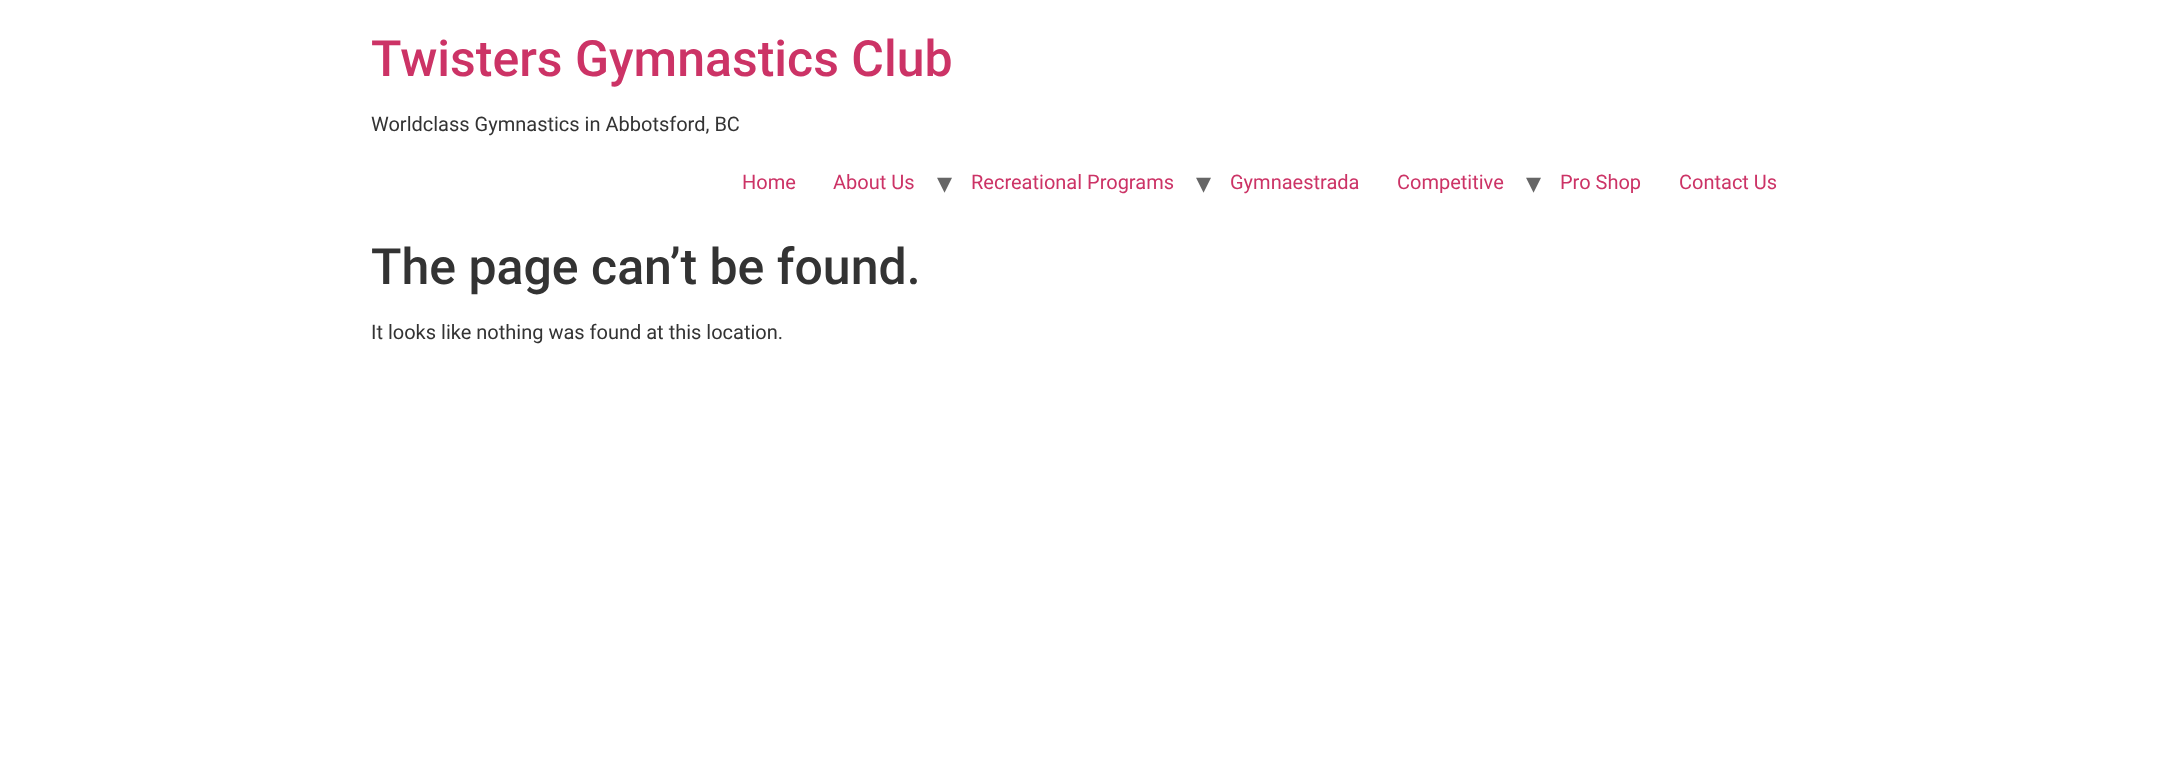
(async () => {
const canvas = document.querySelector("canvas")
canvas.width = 2166
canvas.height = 768
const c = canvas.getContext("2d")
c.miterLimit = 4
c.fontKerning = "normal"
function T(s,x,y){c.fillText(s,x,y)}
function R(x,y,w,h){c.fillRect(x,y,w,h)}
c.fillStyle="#fff"
R(0,0,2166,768)
c.font="500 50px Roboto"
c.fillStyle="#c36"
T("Twisters Gymnastics Club",371,76)
c.font="20px Roboto"
c.fillStyle="#333"
T("Worldclass Gymnastics in Abbotsford, BC",371,131)
c.fillStyle="#c36"
T("Home",742,189)
T("About Us",833,189)
c.font="30px DejaVu Sans"
c.fillStyle="#666"
T("▾",937,193)
c.font="20px Roboto"
c.fillStyle="#c36"
T("Recreational Programs",971,189)
c.font="30px DejaVu Sans"
c.fillStyle="#666"
T("▾",1196,193)
c.font="20px Roboto"
c.fillStyle="#c36"
T("Gymnaestrada",1230,189)
T("Competitive",1397,189)
c.font="30px DejaVu Sans"
c.fillStyle="#666"
T("▾",1526,193)
c.font="20px Roboto"
c.fillStyle="#c36"
T("Pro Shop",1560,189)
T("Contact Us",1679,189)
c.font="500 50px Roboto"
c.fillStyle="#333"
T("The page can’t be found.",371,284)
c.font="20px Roboto"
T("It looks like nothing was found at this location.",371,339)
})()
